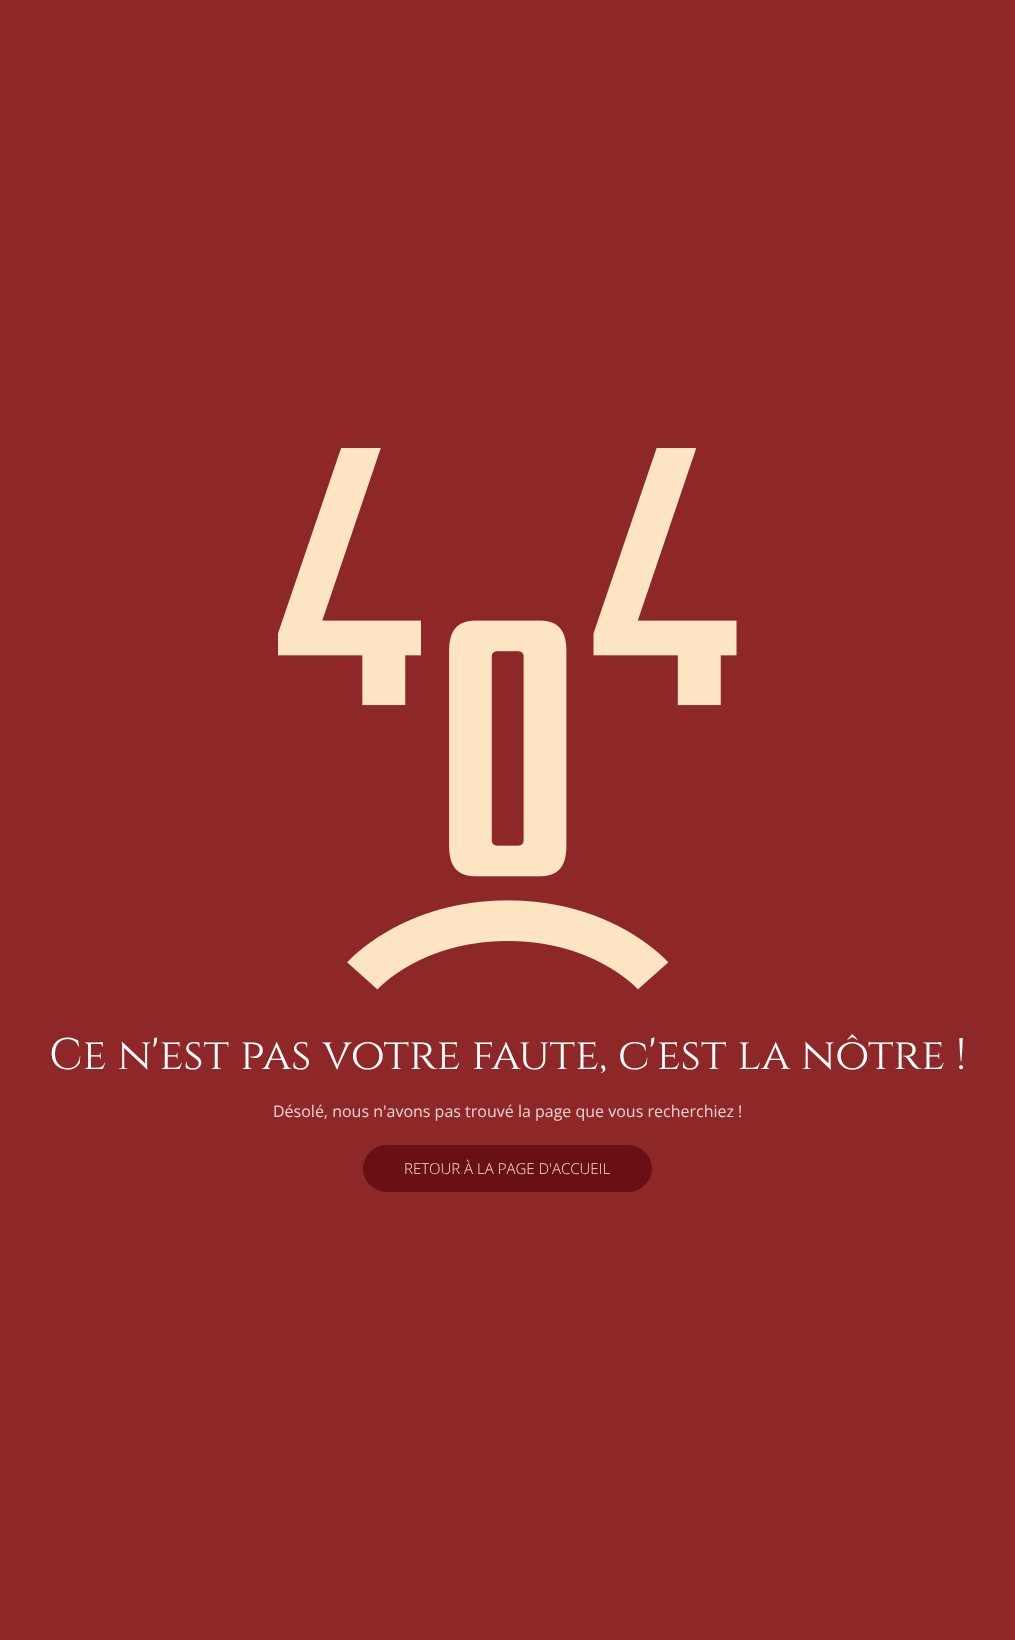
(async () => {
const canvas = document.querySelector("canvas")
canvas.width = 1015
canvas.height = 1640
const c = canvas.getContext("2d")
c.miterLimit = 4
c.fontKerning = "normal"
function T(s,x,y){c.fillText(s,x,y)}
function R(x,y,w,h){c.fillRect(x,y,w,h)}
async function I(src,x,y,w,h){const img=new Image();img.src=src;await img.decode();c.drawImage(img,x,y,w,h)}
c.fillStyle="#8e2828"
R(0,0,1015,1640)
await I("1.png",278,448,459,542)
c.font="44px Cinzel"
c.fillStyle="#fff"
T("Ce n'est pas votre faute, c'est la nôtre !",49,1069)
c.font="16px Open Sans"
c.fillStyle="#e8d4d4"
T("Désolé, nous n'avons pas trouvé la page que vous recherchiez !",273,1117)
c.fillStyle="#691015"
c.beginPath()
c.roundRect(363.5,1145.5,288,46,23)
c.fill()
c.strokeStyle="#691015"
c.stroke()
c.font="300 15px Open Sans"
c.fillStyle="#fde5c3"
T("RETOUR À LA PAGE D'ACCUEIL",404,1174)
})()
